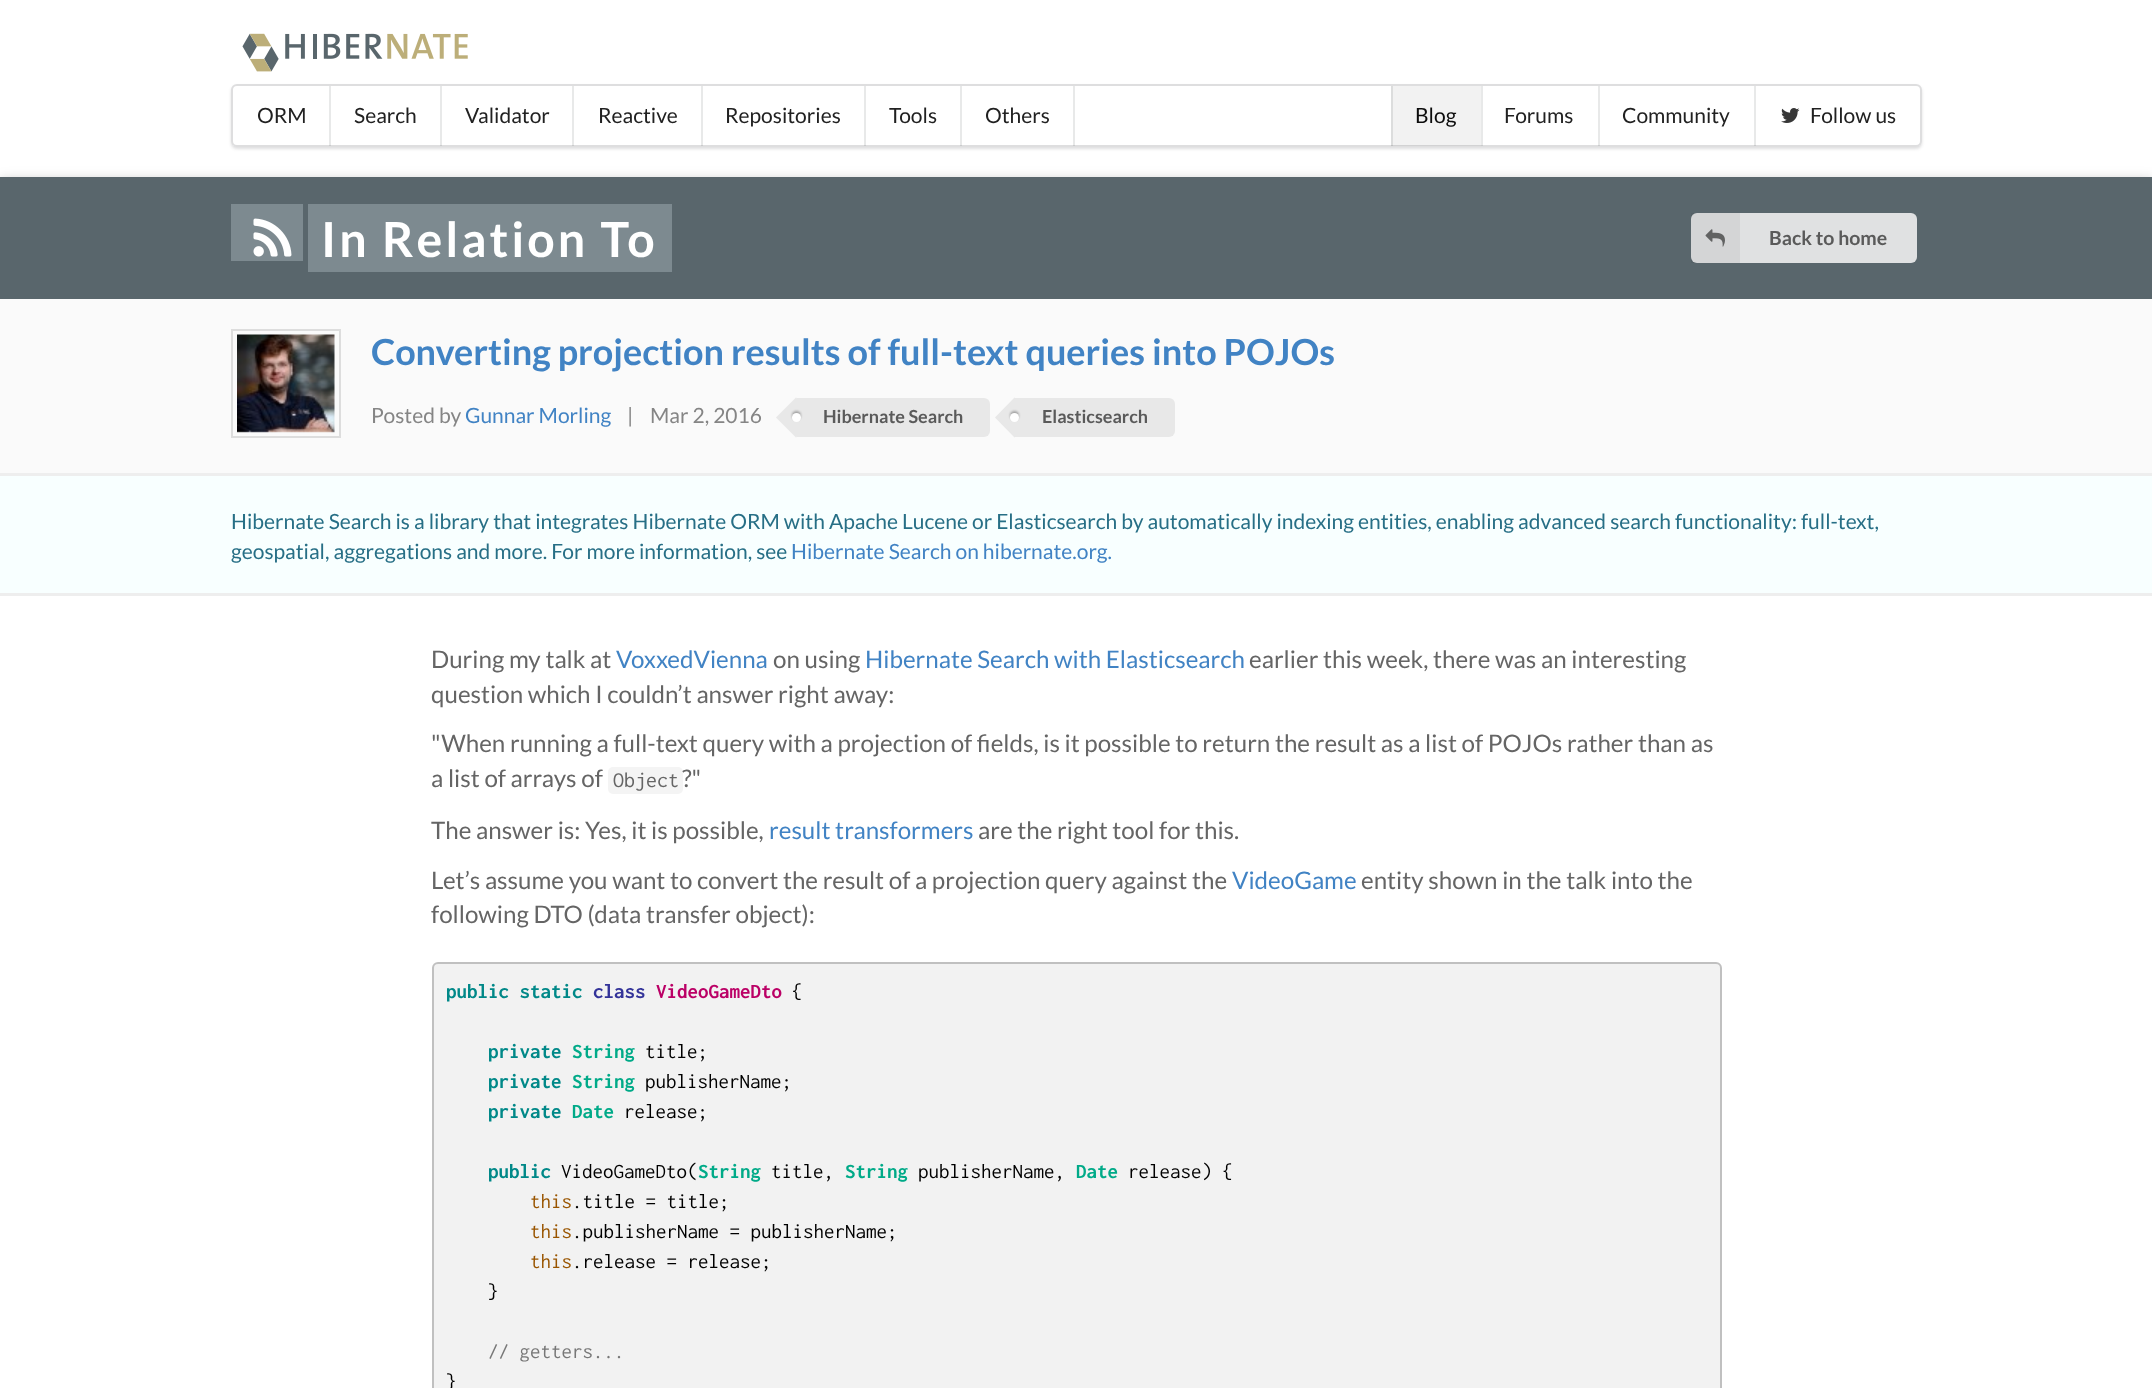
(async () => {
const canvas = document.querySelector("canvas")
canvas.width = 2152
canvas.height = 1388
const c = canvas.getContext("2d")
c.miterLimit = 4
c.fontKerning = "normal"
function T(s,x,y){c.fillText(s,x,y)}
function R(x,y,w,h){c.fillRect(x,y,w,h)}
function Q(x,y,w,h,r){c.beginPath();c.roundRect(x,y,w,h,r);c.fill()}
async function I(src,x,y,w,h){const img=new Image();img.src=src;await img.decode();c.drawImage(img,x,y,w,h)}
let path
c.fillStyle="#fff"
R(0,0,2152,1388)
await I("1.png",242,33,226,39)
c.fillStyle="#22242626"
c.filter="blur(1.5px)"
c.beginPath()
c.roundRect(231,86,1691,63,6)
c.fill()
c.filter="none"
c.fillStyle="#fff"
Q(231,84,1691,63,6)
c.beginPath()
c.roundRect(232,85,1689,61,5)
c.strokeStyle="#22242626"
c.lineWidth=2
c.stroke()
c.font="21px Lato"
c.fillStyle="#212121"
T("ORM",257,123)
c.fillStyle="#2224261a"
R(329,86,2,60)
c.fillStyle="#212121"
T("Search",354,123)
c.fillStyle="#2224261a"
R(440,86,2,60)
c.fillStyle="#212121"
T("Validator",465,123)
c.fillStyle="#2224261a"
R(572,86,2,60)
c.fillStyle="#212121"
T("Reactive",598,123)
c.fillStyle="#2224261a"
R(701,86,2,60)
c.fillStyle="#212121"
T("Repositories",725,123)
c.fillStyle="#2224261a"
R(864,86,2,60)
c.fillStyle="#212121"
T("Tools",889,123)
c.fillStyle="#2224261a"
R(960,86,2,60)
c.fillStyle="#212121"
T("Others",985,123)
c.fillStyle="#2224261a"
R(1073,86,2,60)
c.fillStyle="#0000000d"
R(1391,86,90,60)
c.fillStyle="#2224261a"
R(1391,86,2,60)
c.fillStyle="#0c0c0c"
T("Blog",1415,123)
c.fillStyle="#2224261a"
R(1481,86,2,60)
c.fillStyle="#212121"
T("Forums",1504,123)
c.fillStyle="#2224261a"
R(1598,86,2,60)
c.fillStyle="#212121"
T("Community",1622,123)
c.fillStyle="#2224261a"
R(1754,86,2,60)
await I("2.png",1781,108,19,15)
c.fillStyle="#212121"
T("Follow us",1810,123)
c.fillStyle="#00000030"
c.filter="blur(7.5px)"
c.beginPath()
c.rect(0,182,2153,121)
c.fill()
c.filter="none"
c.fillStyle="#00000033"
c.filter="blur(6px)"
c.beginPath()
c.rect(0,183,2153,122)
c.fill()
c.filter="none"
c.fillStyle="#59666c"
R(0,177,2152,122)
c.fillStyle="#7d8a90"
R(231,204,72,57)
R(308,204,364,68)
await I("3.png",253,218,39,39)
c.letterSpacing="3px"
c.font="bold 48.25px Lato"
c.fillStyle="#fff"
T("In Relation To",321,257)
c.fillStyle="#e0e1e2"
Q(1691,213,226,50,6)
c.fillStyle="#0000000d"
R(1691,213,49,50)
await I("4.png",1705,229,20,18)
c.letterSpacing="0px"
c.font="bold 19.5px Lato"
c.fillStyle="#5a5a5a"
T("Back to home",1769,245)
c.fillStyle="#fafafa"
R(0,299,2152,174)
c.fillStyle="#eee"
R(0,473,2152,3)
c.strokeStyle="#ddd"
c.strokeRect(232,330,108,107)
await I("5.png",237,334,98,99)
c.font="bold 36px Lato"
c.fillStyle="#4183c4"
T("Converting projection results of full-text queries into POJOs",371,365)
c.font="21px Lato"
c.fillStyle="#858585"
T("Posted by",371,423)
c.fillStyle="#4183c4"
T("Gunnar Morling",465,423)
c.fillStyle="#858585"
T("|",627,423)
T("Mar 2, 2016",650,423)
c.fillStyle="#e8e8e8"
c.beginPath()
c.roundRect(797,398,193,39,[0,6,6,0])
c.fill()
path = new Path2D("M776 417.5l20-20l19.5 20l-19.5 20z")
c.fill(path)
c.fillStyle="#0000004d"
c.filter="blur(1px)"
c.beginPath()
c.roundRect(792,411,9,9,4.5)
c.fill()
c.filter="none"
c.fillStyle="#fff"
c.beginPath()
c.arc(796.5,417.5,4.5,0,7)
c.fill()
c.font="bold 18px Lato"
c.fillStyle="#5a5a5a"
T("Hibernate Search",823,423)
c.fillStyle="#e8e8e8"
c.beginPath()
c.roundRect(1014,398,161,39,[0,6,6,0])
c.fill()
path = new Path2D("M995 417.5l19.5-20l20 20l-20 20z")
c.fill(path)
c.fillStyle="#0000004d"
c.filter="blur(1px)"
c.beginPath()
c.roundRect(1010,411,9,9,4.5)
c.fill()
c.filter="none"
c.fillStyle="#fff"
c.beginPath()
c.arc(1014.5,417.5,4.5,0,7)
c.fill()
c.fillStyle="#5a5a5a"
T("Elasticsearch",1042,423)
c.fillStyle="#f8ffff"
R(0,476,2152,117)
c.fillStyle="#eee"
R(0,593,2152,3)
c.font="21px Lato"
c.fillStyle="#276f86"
T("Hibernate Search is a library that integrates Hibernate ORM with Apache Lucene or Elasticsearch by automatically indexing entities, enabling advanced search functionality: full-text,",231,529)
T("geospatial, aggregations and more. For more information, see",231,559)
c.fillStyle="#4183c4"
T("Hibernate Search on hibernate.org.",791,559)
c.font="24.15px Lato"
c.fillStyle="#656565"
T("During my talk at",431,668)
c.fillStyle="#4183c4"
T("VoxxedVienna",616,668)
c.fillStyle="#656565"
T("on using",773,668)
c.fillStyle="#4183c4"
T("Hibernate Search with Elasticsearch",865,668)
c.fillStyle="#656565"
T("earlier this week, there was an interesting",1249,668)
T("question which I couldn’t answer right away:",431,703)
T("\"When running a full-text query with a projection of fields, is it possible to return the result as a list of POJOs rather than as",431,752)
T("a list of arrays of",431,787)
c.fillStyle="#f4f4f4"
Q(608,767,75,27,5)
c.font="22px Inconsolata"
c.fillStyle="#656565"
T("Object",613,787)
c.font="24.15px Lato"
T("?\"",682,787)
T("The answer is: Yes, it is possible,",431,839)
c.fillStyle="#4183c4"
T("result transformers",769,839)
c.fillStyle="#656565"
T("are the right tool for this.",978,839)
T("Let’s assume you want to convert the result of a projection query against the",431,889)
c.fillStyle="#4183c4"
T("VideoGame",1232,889)
c.fillStyle="#656565"
T("entity shown in the talk into the",1361,889)
T("following DTO (data transfer object):",431,923)
c.fillStyle="#f2f2f2"
c.beginPath()
c.roundRect(433,963,1288,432,5)
c.fill()
c.strokeStyle="#c0c0c0"
c.stroke()
c.font="bold 21px Inconsolata"
c.fillStyle="#088"
T("public static",446,998)
c.fillStyle="#339"
T("class",593,998)
c.fillStyle="#b06"
T("VideoGameDto",656,998)
c.font="21px Inconsolata"
c.fillStyle="#000"
T("{",792,998)
c.font="bold 21px Inconsolata"
c.fillStyle="#088"
T("private",488,1058)
c.fillStyle="#0a8"
T("String",572,1058)
c.font="21px Inconsolata"
c.fillStyle="#000"
T("title;",645,1058)
c.font="bold 21px Inconsolata"
c.fillStyle="#088"
T("private",488,1088)
c.fillStyle="#0a8"
T("String",572,1088)
c.font="21px Inconsolata"
c.fillStyle="#000"
T("publisherName;",645,1088)
c.font="bold 21px Inconsolata"
c.fillStyle="#088"
T("private",488,1118)
c.fillStyle="#0a8"
T("Date",572,1118)
c.font="21px Inconsolata"
c.fillStyle="#000"
T("release;",624,1118)
c.font="bold 21px Inconsolata"
c.fillStyle="#088"
T("public",488,1178)
c.font="21px Inconsolata"
c.fillStyle="#000"
T("VideoGameDto(",561,1178)
c.font="bold 21px Inconsolata"
c.fillStyle="#0a8"
T("String",698,1178)
c.font="21px Inconsolata"
c.fillStyle="#000"
T("title,",771,1178)
c.font="bold 21px Inconsolata"
c.fillStyle="#0a8"
T("String",845,1178)
c.font="21px Inconsolata"
c.fillStyle="#000"
T("publisherName,",918,1178)
c.font="bold 21px Inconsolata"
c.fillStyle="#0a8"
T("Date",1076,1178)
c.font="21px Inconsolata"
c.fillStyle="#000"
T("release) {",1128,1178)
c.fillStyle="#950"
T("this",530,1208)
c.fillStyle="#000"
T(".title = title;",572,1208)
c.fillStyle="#950"
T("this",530,1238)
c.fillStyle="#000"
T(".publisherName = publisherName;",572,1238)
c.fillStyle="#950"
T("this",530,1268)
c.fillStyle="#000"
T(".release = release;",572,1268)
T("}",488,1298)
c.fillStyle="#777"
T("// getters...",488,1358)
c.fillStyle="#000"
T("}",446,1388)
})()
